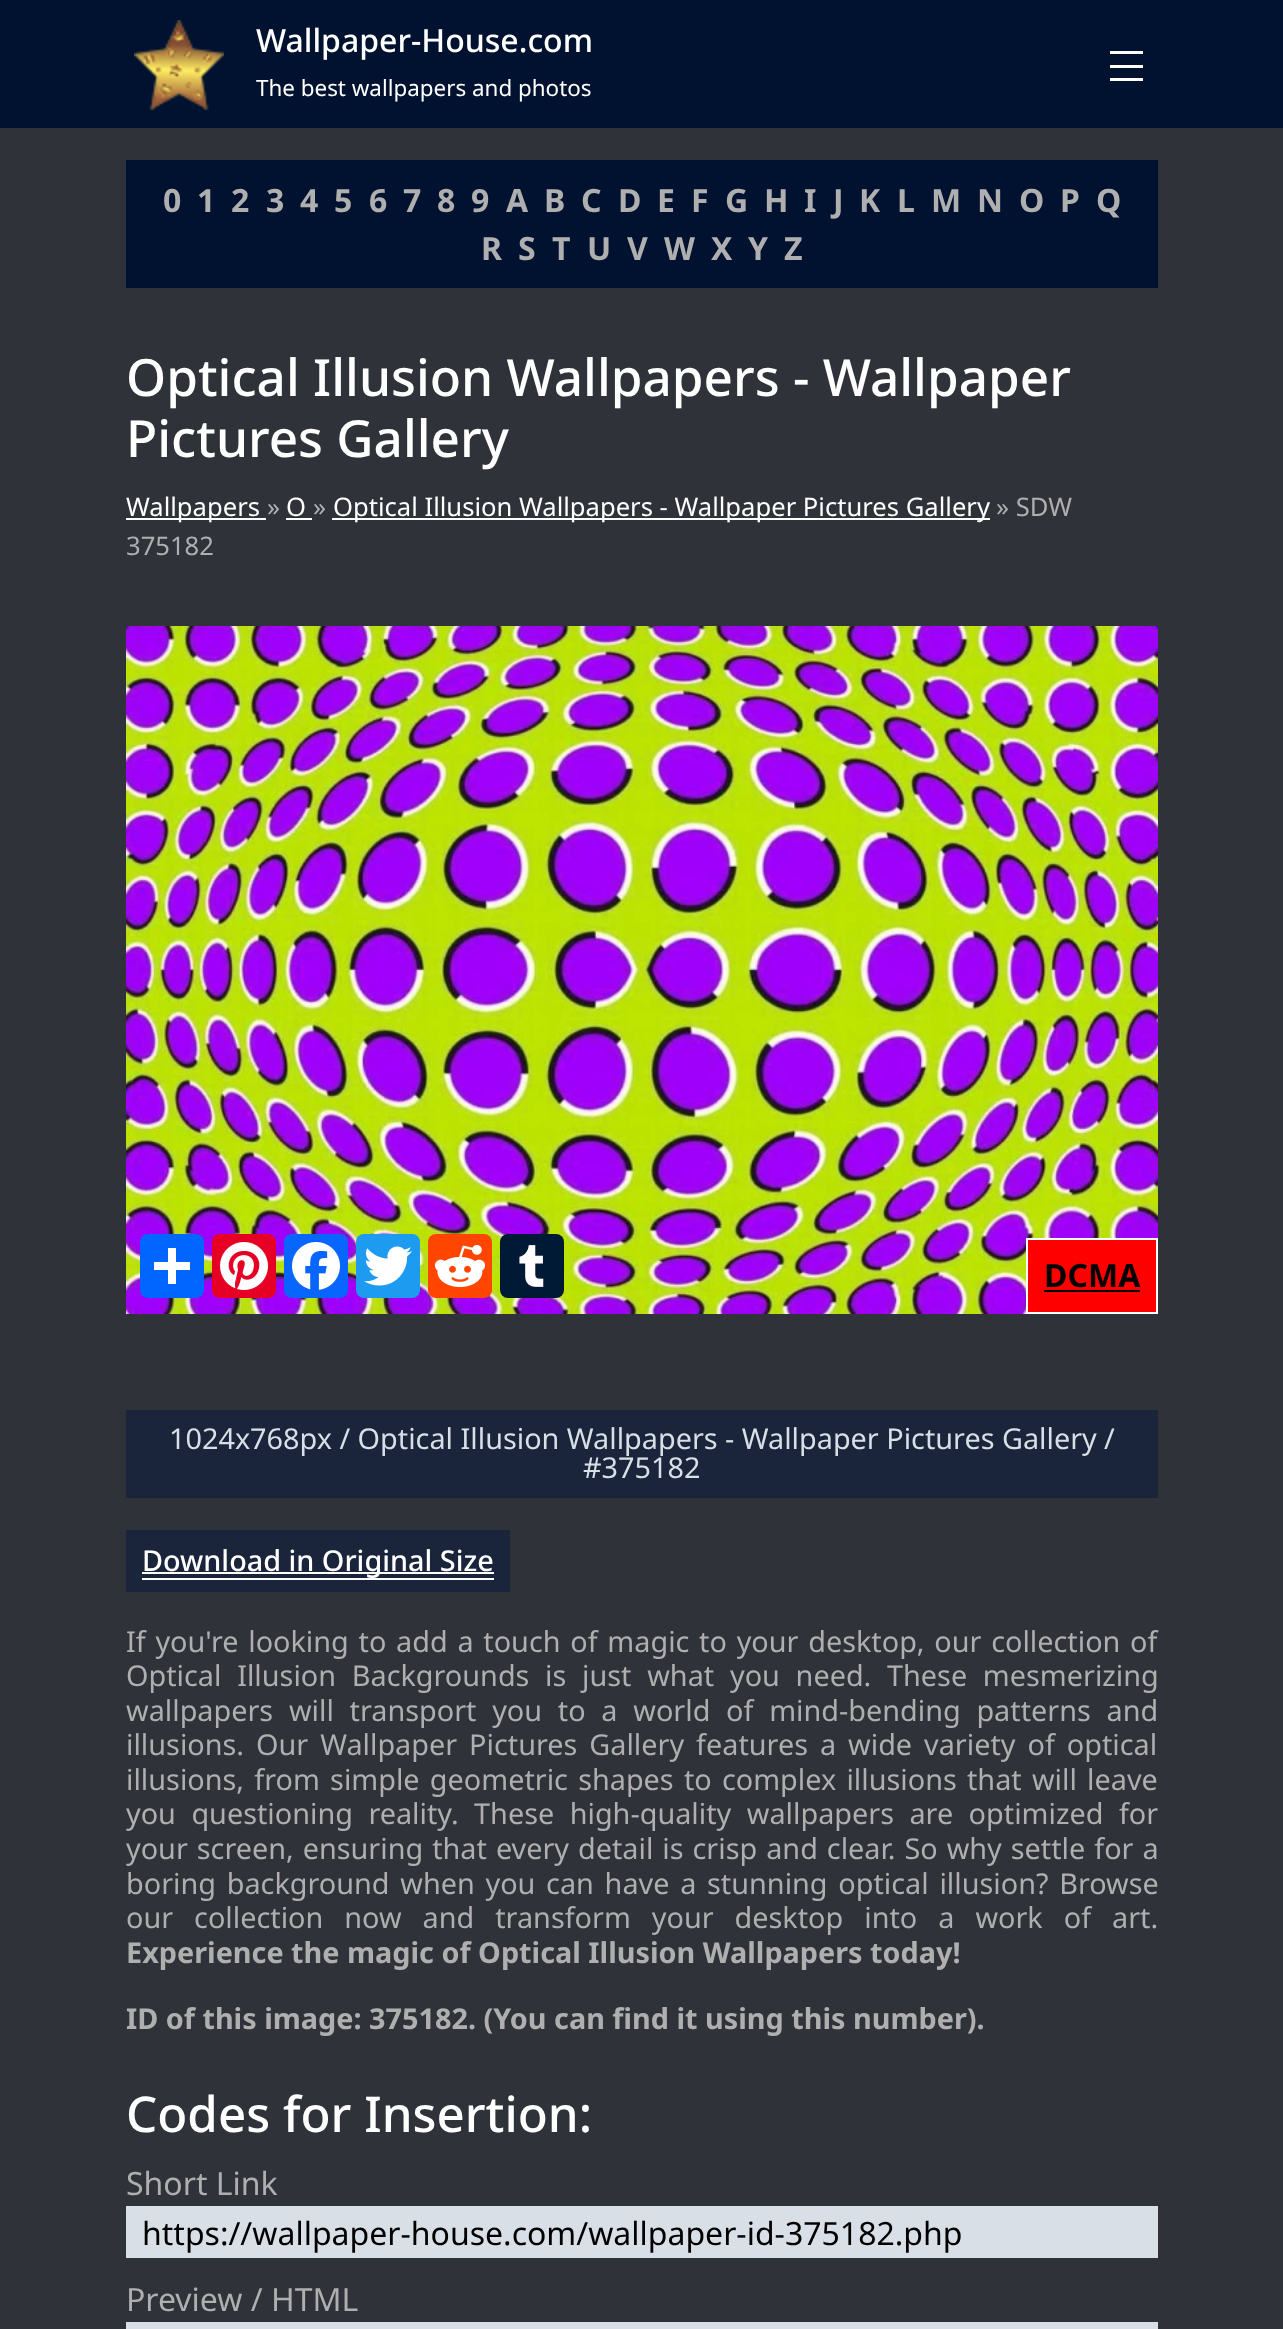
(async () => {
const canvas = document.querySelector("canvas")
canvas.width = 1283
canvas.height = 2329
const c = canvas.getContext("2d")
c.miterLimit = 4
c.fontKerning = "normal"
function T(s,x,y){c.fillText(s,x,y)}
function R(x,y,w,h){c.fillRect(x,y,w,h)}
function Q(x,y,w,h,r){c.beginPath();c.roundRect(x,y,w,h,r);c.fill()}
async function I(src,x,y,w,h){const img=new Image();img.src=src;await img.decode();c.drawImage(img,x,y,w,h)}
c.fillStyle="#2f3238"
R(0,0,1283,2329)
c.fillStyle="#00122f"
R(0,0,1283,128)
await I("1.png",134,20,90,90)
c.font="500 32px Noto Sans"
c.fillStyle="#fff"
T("Wallpaper-House.com",256,52)
c.font="22.4px Noto Sans"
T("The best wallpapers and photos",256,96)
R(1110,51,33,3)
R(1110,65,33,3)
R(1110,78,33,3)
c.fillStyle="#00122f"
R(126,160,1032,128)
c.font="bold 32px Noto Sans"
c.fillStyle="#afafaf"
T("0",163,212)
T("1",197,212)
T("2",231,212)
T("3",266,212)
T("4",300,212)
T("5",334,212)
T("6",369,212)
T("7",403,212)
T("8",437,212)
T("9",471,212)
T("A",506,212)
T("B",544,212)
T("C",581,212)
T("D",618,212)
T("E",657,212)
T("F",691,212)
T("G",725,212)
T("H",764,212)
T("I",804,212)
T("J",833,212)
T("K",859,212)
T("L",897,212)
T("M",931,212)
T("N",977,212)
T("O",1019,212)
T("P",1060,212)
T("Q",1096,212)
T("R",481,260)
T("S",518,260)
T("T",552,260)
T("U",587,260)
T("V",627,260)
T("W",664,260)
T("X",711,260)
T("Y",748,260)
T("Z",784,260)
c.font="500 51.25px Noto Sans"
c.fillStyle="#fff"
T("Optical Illusion Wallpapers - Wallpaper",126,396)
T("Pictures Gallery",126,457)
R(126,518,140,2)
c.font="25.6px Noto Sans"
T("Wallpapers",126,516)
c.fillStyle="#afafaf"
T("»",267,516)
c.fillStyle="#fff"
T("O",286,516)
R(286,518,26,2)
c.fillStyle="#afafaf"
T("»",313,516)
c.fillStyle="#fff"
R(332,518,658,2)
T("Optical Illusion Wallpapers - Wallpaper Pictures Gallery",333,516)
c.fillStyle="#afafaf"
T("» SDW",996,516)
T("375182",126,555)
await I("7.png",126,626,1032,688)
c.fillStyle="#0166ff"
Q(140,1234,64,64,8)
c.fillStyle="#fff"
R(168,1248,8,36)
R(154,1262,36,8)
c.fillStyle="#e60023"
Q(212,1234,64,64,8)
await I("2.png",220,1242,48,48)
c.fillStyle="#0866ff"
Q(284,1234,64,64,8)
await I("3.png",292,1242,48,48)
c.fillStyle="#1d9bf0"
Q(356,1234,64,64,8)
await I("4.png",364,1246,48,40)
c.fillStyle="#ff4500"
Q(428,1234,64,64,8)
await I("5.png",434,1244,52,44)
c.fillStyle="#001935"
Q(500,1234,64,64,8)
await I("6.png",519,1245,25,42)
c.fillStyle="#f00"
c.beginPath()
c.rect(1027,1239,130,74)
c.fill()
c.strokeStyle="#fff"
c.lineWidth=2
c.stroke()
c.font="bold 32px Noto Sans"
c.fillStyle="#000"
T("DCMA",1044,1287)
R(1044,1290,96,2)
c.fillStyle="#1a243a"
R(126,1410,1032,88)
c.font="28.8px Noto Sans"
c.fillStyle="#d8dfe7"
T("1024x768px / Optical Illusion Wallpapers - Wallpaper Pictures Gallery",169,1449)
T("/",1104,1449)
T("#375182",583,1478)
c.fillStyle="#1a243a"
R(126,1530,384,62)
c.fillStyle="#fff"
R(142,1572,352,2)
c.font="500 28.8px Noto Sans"
T("Download in Original Size",142,1571)
R(142,1578,352,2)
c.wordSpacing="2.25px"
c.font="28.8px Noto Sans"
c.fillStyle="#afafaf"
T("If you're looking to add a touch of magic to your desktop, our collection of",126,1652)
c.wordSpacing="8.25px"
T("Optical Illusion Backgrounds is just what you need. These mesmerizing",126,1686)
T("wallpapers will transport you to a world of mind-bending patterns and",126,1721)
c.wordSpacing="4.5px"
T("illusions. Our Wallpaper Pictures Gallery features a wide variety of optical",126,1755)
c.wordSpacing="2.75px"
T("illusions, from simple geometric shapes to complex illusions that will leave",126,1790)
c.wordSpacing="8px"
T("you questioning reality. These high-quality wallpapers are optimized for",126,1824)
c.wordSpacing="1.5px"
T("your screen, ensuring that every detail is crisp and clear. So why settle for a",126,1859)
c.wordSpacing="3.25px"
T("boring background when you can have a stunning optical illusion? Browse",126,1894)
c.wordSpacing="13.5px"
T("our collection now and transform your desktop into a work of art.",126,1928)
c.wordSpacing="0px"
c.font="bold 28.8px Noto Sans"
T("Experience the magic of Optical Illusion Wallpapers today!",126,1963)
T("ID of this image: 375182. (You can find it using this number).",126,2029)
c.font="500 49.25px Noto Sans"
c.fillStyle="#fff"
T("Codes for Insertion:",126,2132)
c.font="32px Noto Sans"
c.fillStyle="#afafaf"
T("Short Link",126,2195)
c.fillStyle="#d8dfe7"
R(126,2206,1032,52)
c.fillStyle="#000"
T("https://wallpaper-house.com/wallpaper-id-375182.php",142,2245)
c.fillStyle="#afafaf"
T("Preview / HTML",126,2311)
c.fillStyle="#d8dfe7"
R(126,2322,1032,7)
})()
